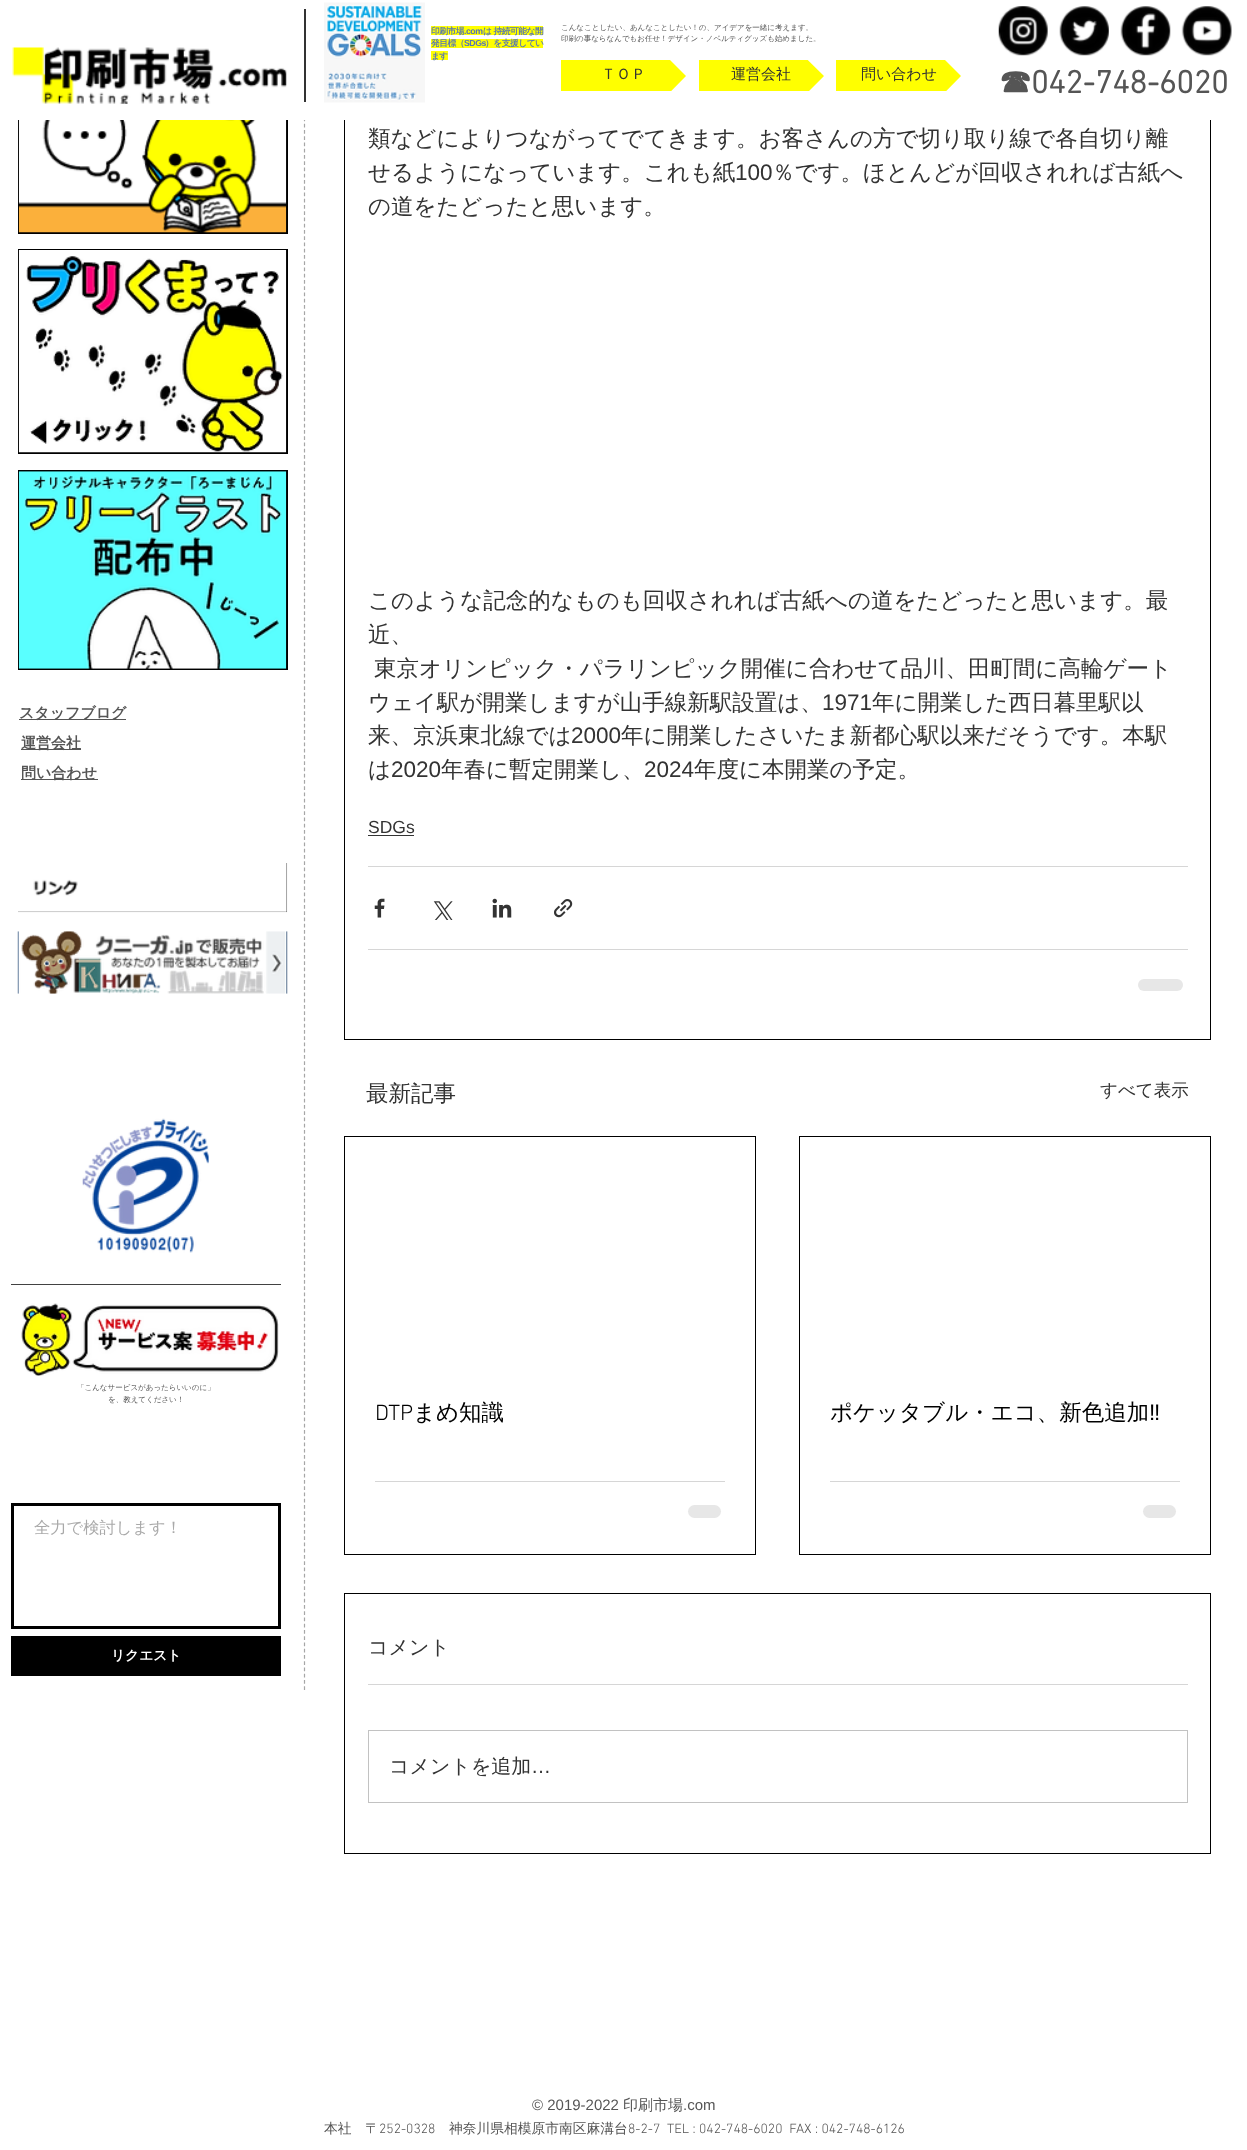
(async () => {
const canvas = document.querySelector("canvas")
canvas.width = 1247
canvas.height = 2150
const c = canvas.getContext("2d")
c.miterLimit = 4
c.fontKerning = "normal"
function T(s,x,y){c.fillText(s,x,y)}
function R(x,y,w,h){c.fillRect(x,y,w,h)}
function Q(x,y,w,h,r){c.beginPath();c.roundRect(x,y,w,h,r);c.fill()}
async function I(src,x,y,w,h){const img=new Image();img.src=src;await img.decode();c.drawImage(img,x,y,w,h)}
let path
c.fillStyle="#fff"
R(0,0,1247,2150)
path = new Path2D("M304.5-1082.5v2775")
c.strokeStyle="#a6a6a6"
c.lineWidth=1.2
c.setLineDash([3.75,2.5])
c.stroke(path)
c.strokeStyle="#000"
c.lineWidth=1
c.setLineDash([])
c.strokeRect(344.5,-.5,866,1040)
R(303,0,908,120)
c.fillStyle="#333"
R(304,9,2,93)
await I("1.png",324,2,101,101)
c.fillStyle="#ff0"
R(431,26,112,9)
c.letterSpacing="-0.5px"
c.font="bold 8.75px WenQuanYi Zen Hei"
c.fillStyle="#5876b3"
T("印刷市場",431,34)
c.font="bold 8.75px Liberation Sans"
T(".com",464,34)
c.font="bold 8.75px WenQuanYi Zen Hei"
T("は 持続可能な開",483,34)
c.fillStyle="#ff0"
R(431,39,112,9)
c.fillStyle="#5876b3"
T("発目標（",431,46)
c.font="bold 8.75px Liberation Sans"
T("SDGs",464,46)
c.font="bold 8.75px WenQuanYi Zen Hei"
T("）を支援してい",485,46)
c.fillStyle="#ff0"
R(431,51,17,9)
c.letterSpacing="-1px"
c.fillStyle="#5876b3"
T("ます",431,59)
c.letterSpacing="0px"
c.font="500 7.5px WenQuanYi Zen Hei"
c.fillStyle="#555"
T("こんなことしたい、あんなことしたい！の、アイデアを一緒に考えます。",561,30)
T("印刷の事ならなんでもお任せ！デザイン・ノベルティグッズも始めました。",561,41)
await I("2.png",998,6,50,50)
await I("3.png",1059,6,50,50)
await I("4.png",1120,6,51,50)
await I("5.png",1181,6,51,50)
await I("6.png",12,47,275,57)
c.fillStyle="#ff0"
R(561,60,63,31)
c.save()
c.beginPath()
c.rect(561,60,125,31)
c.clip()
path = new Path2D("M686 76h-62v-62zm-62 0h62l-62 63z")
c.fill(path)
c.restore()
c.font="500 15px WenQuanYi Zen Hei"
c.fillStyle="#333"
T("ＴＯＰ",601,79)
c.fillStyle="#ff0"
R(699,60,62,31)
c.save()
c.beginPath()
c.rect(699,60,125,31)
c.clip()
path = new Path2D("M824 76h-63v-62zm-63 0h63l-63 63z")
c.fill(path)
c.restore()
c.fillStyle="#333"
T("運営会社",731,79)
c.fillStyle="#ff0"
R(836,60,63,31)
c.save()
c.beginPath()
c.rect(836,60,125,31)
c.clip()
path = new Path2D("M961 76h-62v-62zm-62 0h62l-62 63z")
c.fill(path)
c.restore()
c.fillStyle="#333"
T("問い合わせ",861,79)
c.font="bold 32.5px WenQuanYi Zen Hei"
c.fillStyle="#555"
T("☎",999,93)
c.font="bold 32.5px 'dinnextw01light'"
T("042-748-6020",1031,93)
c.fillStyle="#000"
R(18,120,270,114)
await I("7.png",18,120,269,113)
R(18,249,270,205)
await I("8.png",18,250,269,203)
R(18,470,270,200)
await I("9.png",18,471,269,198)
c.fillStyle="#555"
R(19,719,107,1)
c.font="bold 15px WenQuanYi Zen Hei"
T("スタッフブログ",19,718)
R(21,749,60,1)
T("運営会社",21,748)
R(21,779,77,1)
T("問い合わせ",21,778)
await I("10.png",18,863,270,50)
await I("11.png",17,931,271,63)
await I("12.png",82,1118,127,135)
c.fillStyle="#424242"
R(11,1284,270,1)
await I("13.png",21,1303,258,73)
c.font="500 7.5px WenQuanYi Zen Hei"
c.fillStyle="#555"
T("「こんなサービスがあったらいいのに」",77,1390)
T("を、教えてください！",108,1402)
c.lineWidth=3
c.strokeRect(12.5,1504.5,267,123)
c.font="500 16.25px WenQuanYi Zen Hei"
c.fillStyle="#a9a9a9"
T("全力で検討します！",34,1533)
c.fillStyle="#000"
R(11,1636,270,40)
c.font="bold 13.75px WenQuanYi Zen Hei"
c.fillStyle="#fff"
T("リクエスト",111,1660)
c.font="500 22.5px WenQuanYi Zen Hei"
c.fillStyle="#333"
T("類などによりつながってでてきます。お客さんの方で切り取り線で各自切り離",368,146)
T("せるようになっています。これも紙",368,180)
c.font="22.5px Liberation Sans"
T("100",735,180)
c.font="500 22.5px WenQuanYi Zen Hei"
T("％です。ほとんどが回収されれば古紙へ",772,180)
T("の道をたどったと思います。",368,214)
T("このような記念的なものも回収されれば古紙への道をたどったと思います。最",368,608)
T("近、",368,642)
T("東京オリンピック・パラリンピック開催に合わせて品川、田町間に高輪ゲート",374,676)
T("ウェイ駅が開業しますが山手線新駅設置は、",368,710)
c.font="22.5px Liberation Sans"
T("1971",822,710)
c.font="500 22.5px WenQuanYi Zen Hei"
T("年に開業した西日暮里駅以",872,710)
T("来、京浜東北線では",368,743)
c.font="22.5px Liberation Sans"
T("2000",571,743)
c.font="500 22.5px WenQuanYi Zen Hei"
T("年に開業したさいたま新都心駅以来だそうです。本駅",621,743)
T("は",368,777)
c.font="22.5px Liberation Sans"
T("2020",391,777)
c.font="500 22.5px WenQuanYi Zen Hei"
T("年春に暫定開業し、",441,777)
c.font="22.5px Liberation Sans"
T("2024",644,777)
c.font="500 22.5px WenQuanYi Zen Hei"
T("年度に本開業の予定。",694,777)
c.font="17.5px Liberation Sans"
T("SDGs",368,833)
R(368,835,46,1)
c.fillStyle="#d6d6d6"
R(368,866,820,1)
await I("14.png",374,898,11,20)
await I("15.png",433,901,20,19)
await I("16.png",492,898,20,20)
await I("17.png",554,899,19,19)
R(368,949,820,1)
c.fillStyle="#e7e7e7"
Q(1138,979,45,12,6)
c.font="500 22.5px WenQuanYi Zen Hei"
c.fillStyle="#333"
T("最新記事",366,1101)
c.font="500 17.5px WenQuanYi Zen Hei"
T("すべて表示",1100,1096)
c.lineWidth=1
c.strokeRect(344.5,1136.5,411,418)
c.font="300 22.5px 'dinnextw01light'"
c.fillStyle="#000"
T("DTP",375,1420)
c.font="500 22.5px WenQuanYi Zen Hei"
T("まめ知識",413,1420)
c.fillStyle="#d6d6d6"
R(375,1481,350,1)
c.fillStyle="#e7e7e7"
Q(688,1505,33,13,6.5)
c.strokeRect(799.5,1136.5,411,418)
c.fillStyle="#000"
T("ポケッタブル・エコ、新色追加",830,1420)
c.font="22.5px Liberation Sans"
T("‼",1149,1420)
c.fillStyle="#d6d6d6"
R(830,1481,350,1)
c.fillStyle="#e7e7e7"
Q(1143,1505,33,13,6.5)
c.strokeRect(344.5,1593.5,866,260)
c.font="500 20px WenQuanYi Zen Hei"
c.fillStyle="#333"
T("コメント",368,1654)
c.fillStyle="#d6d6d6"
R(368,1684,820,1)
c.strokeStyle="#c2c2c2"
c.strokeRect(368.5,1730.5,819,72)
c.fillStyle="#333"
T("コメントを追加",389,1773)
c.font="20px Liberation Sans"
T("…",531,1773)
c.font="15px Liberation Sans"
c.fillStyle="#555"
T("© 2019-2022",532,2110)
c.font="500 15px WenQuanYi Zen Hei"
T("印刷市場",623,2110)
c.font="15px Liberation Sans"
T(".com",683,2110)
c.font="500 13.75px WenQuanYi Zen Hei"
T("本社　〒",324,2133)
c.font="300 13.75px 'dinnextw01light'"
T("252-0328",379,2133)
c.font="500 13.75px WenQuanYi Zen Hei"
T("神奈川県相模原市南区麻溝台",449,2133)
c.font="300 13.75px 'dinnextw01light'"
T("8-2-7  TEL : 042-748-6020  FAX : 042-748-6126",628,2133)
})()
